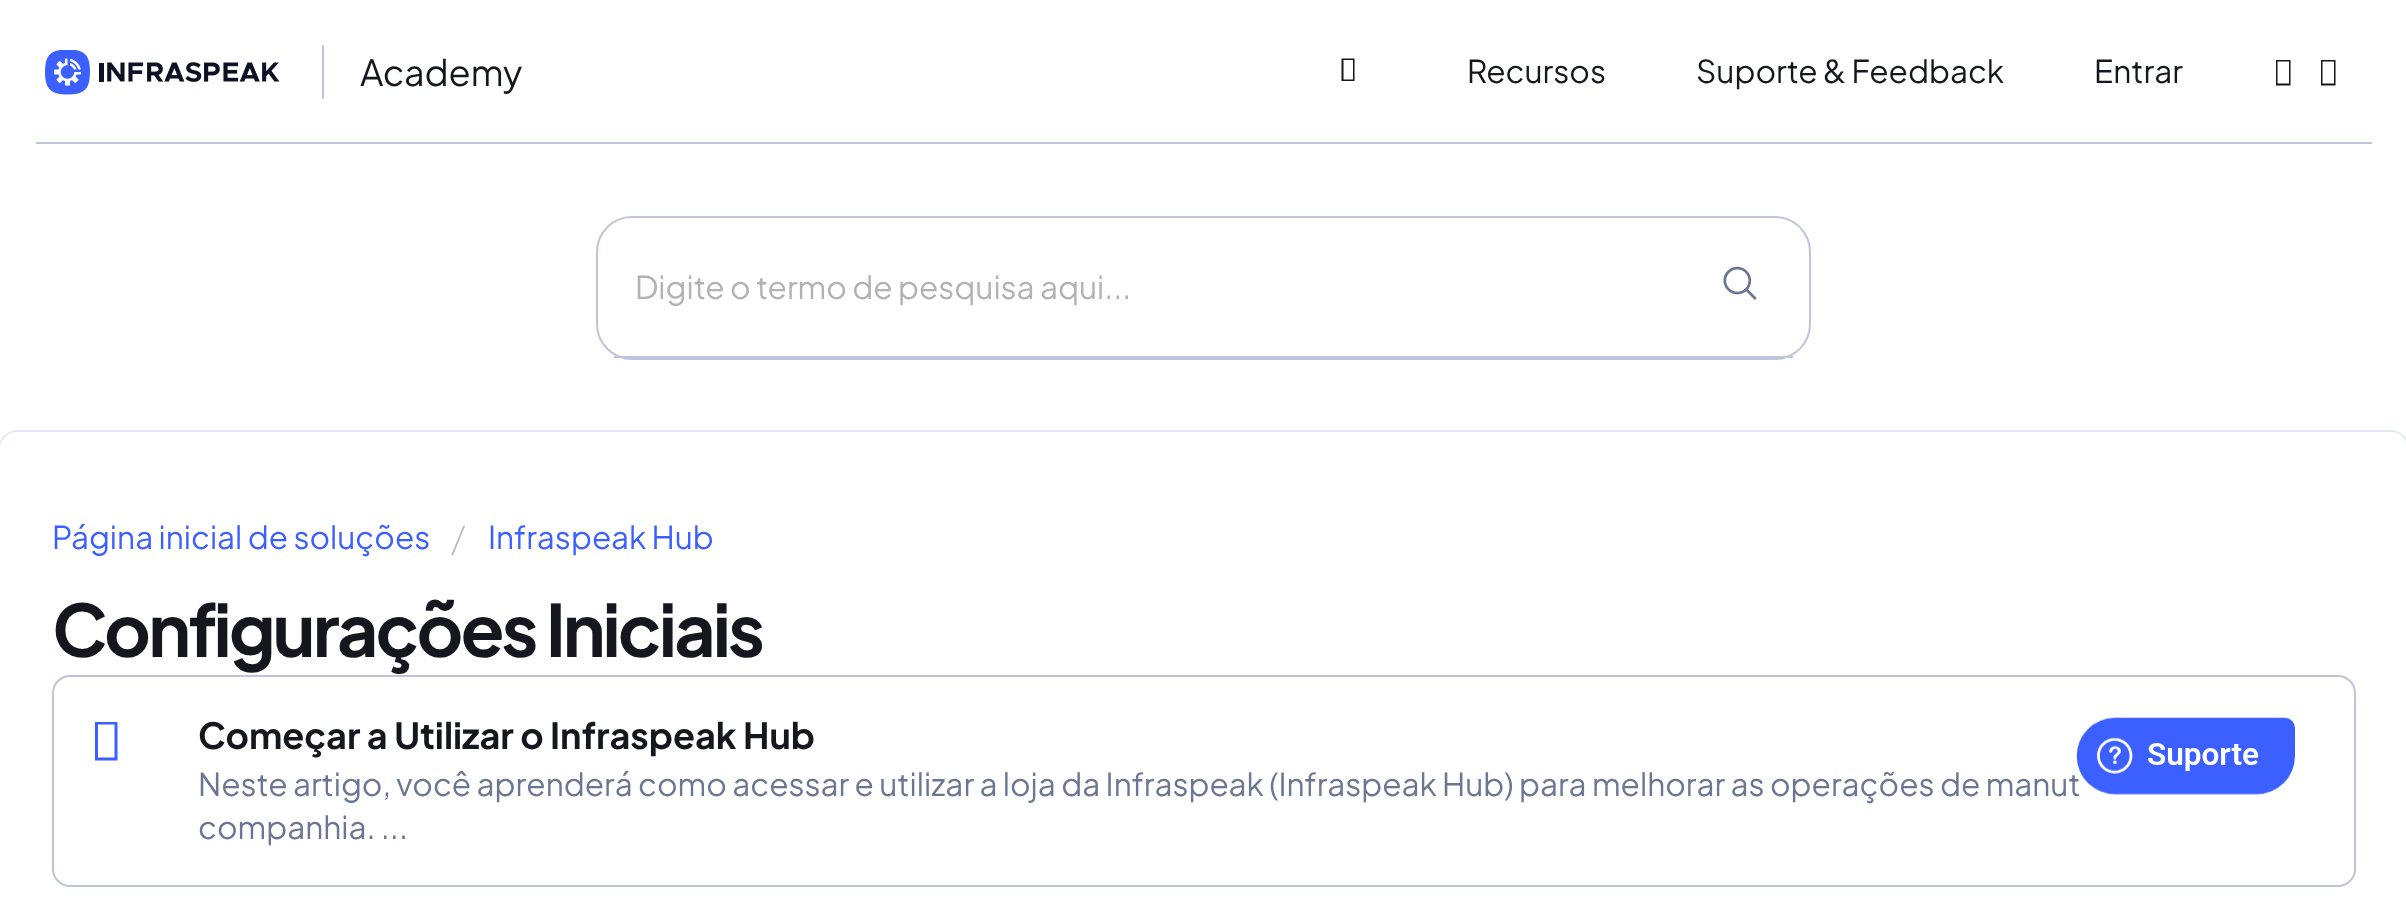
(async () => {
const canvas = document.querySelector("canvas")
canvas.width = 2406
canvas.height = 919
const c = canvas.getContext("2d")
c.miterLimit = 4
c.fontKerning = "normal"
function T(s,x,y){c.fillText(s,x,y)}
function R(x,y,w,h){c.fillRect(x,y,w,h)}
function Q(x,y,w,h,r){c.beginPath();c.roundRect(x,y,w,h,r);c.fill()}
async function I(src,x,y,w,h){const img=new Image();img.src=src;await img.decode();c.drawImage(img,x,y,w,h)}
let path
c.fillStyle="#fff"
R(0,0,2406,919)
await I("1.png",45,50,235,45)
c.fillStyle="#bec5da"
R(322,45,2,54)
c.font="36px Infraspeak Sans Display"
c.fillStyle="#15171e"
T("Academy",360,86)
path = new Path2D("M1341.5 81v-22.5h13v22.5zm2-1.5h9.5v-19.5h-9.5z")
c.fill(path)
c.font="31.5px Infraspeak Sans Display"
T("Recursos",1467,83)
T("Suporte & Feedback",1696,83)
T("Entrar",2094,83)
path = new Path2D("M2276 85.5v-25.5h14.5v25.5zm1.5-2h11.5v-22h-11.5zm43.5 2v-25.5h14.5v25.5zm1.5-2h11.5v-22h-11.5z")
c.fill(path)
c.fillStyle="#bec5da"
R(36,142,2336,2)
c.beginPath()
c.roundRect(597,217,1213,142,35)
c.strokeStyle="#bec5da"
c.lineWidth=2
c.stroke()
R(614,356,1179,2)
c.fillStyle="#b2b2b2"
T("Digite o termo de pesquisa aqui...",635,299)
c.fillStyle="#fff"
Q(1676,225,126,126,9)
await I("2.png",1723,266,34,34)
c.beginPath()
c.roundRect(-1,431,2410,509,19)
c.strokeStyle="#e5e9f5"
c.stroke()
Q(0,432,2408,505,18)
c.fillStyle="#3c5fff"
T("Página inicial de soluções",52,549)
c.font="200 36px Infraspeak Sans Display"
c.fillStyle="#bbb"
T("/",451,551)
c.font="31.5px Infraspeak Sans Display"
c.fillStyle="#3c5fff"
T("Infraspeak Hub",488,549)
c.letterSpacing="-2.9px"
c.font="bold 72px Infraspeak Sans Display"
c.fillStyle="#15171e"
T("Configurações Iniciais",52,657)
c.beginPath()
c.roundRect(53,676,2302,210,17)
c.strokeStyle="#bec5da"
c.stroke()
c.fillStyle="#3c5fff"
path = new Path2D("M95 760.5v-38.5h22.5v38.5zm3-3h16.5v-33h-16.5z")
c.fill(path)
c.letterSpacing="0px"
c.font="bold 36px Infraspeak Sans Display"
c.fillStyle="#15171e"
T("Começar a Utilizar o Infraspeak Hub",198,749)
c.font="31.5px Infraspeak Sans Display"
c.fillStyle="#6b7594"
T("Neste artigo, você aprenderá como acessar e utilizar a loja da Infraspeak (Infraspeak Hub) para melhorar as operações de manut",198,796)
T("companhia. ...",198,839)
await I("3.png",2076,717,220,78)
})()
